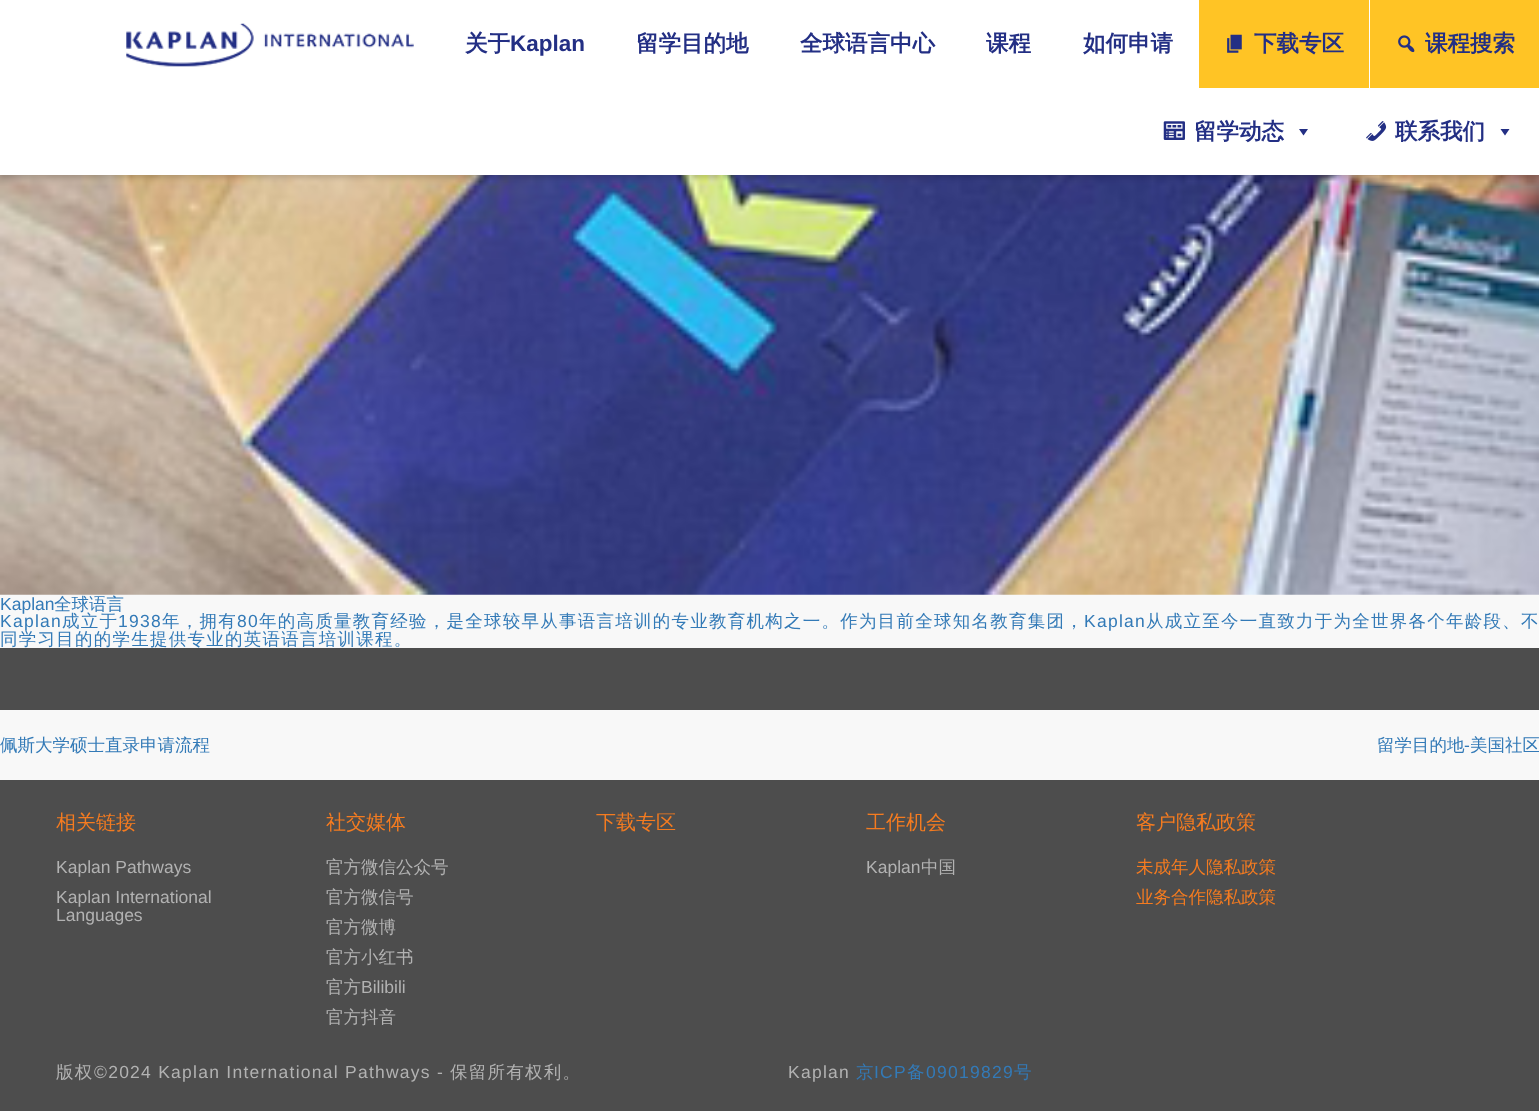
(async () => {
const canvas = document.querySelector("canvas")
canvas.width = 1539
canvas.height = 1111
const c = canvas.getContext("2d")
c.miterLimit = 4
c.fontKerning = "normal"
function T(s,x,y){c.fillText(s,x,y)}
function R(x,y,w,h){c.fillRect(x,y,w,h)}
async function I(src,x,y,w,h){const img=new Image();img.src=src;await img.decode();c.drawImage(img,x,y,w,h)}
let path
c.fillStyle="#f8f8f8"
R(0,0,1539,1111)
await I("6.png",0,175,1539,420)
c.fillStyle="#00000026"
c.filter="blur(2.5px)"
c.beginPath()
c.rect(0,3,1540,175)
c.fill()
c.filter="none"
c.fillStyle="#fff"
R(0,0,1539,175)
await I("1.png",126,23,288,44)
c.font="bold 22.5px WenQuanYi Zen Hei"
c.fillStyle="#232f84"
T("关于",465,51)
c.font="bold 22.5px Liberation Sans"
T("Kaplan",510,51)
c.font="bold 22.5px WenQuanYi Zen Hei"
T("留学目的地",636,51)
T("全球语言中心",800,51)
T("课程",986,51)
T("如何申请",1083,51)
c.fillStyle="#ffc425"
R(1199,0,170,88)
await I("2.png",1227,34,15,19)
c.fillStyle="#232f84"
T("下载专区",1254,51)
c.fillStyle="#ffc425"
R(1370,0,169,88)
await I("3.png",1398,35,17,18)
c.fillStyle="#232f84"
T("课程搜索",1425,51)
await I("4.png",1163,121,22,19)
T("留学动态",1194,139)
path = new Path2D("M1308 129l-4.5 6.5l-4.5-6.5z")
c.fill(path)
await I("5.png",1366,121,21,20)
T("联系我们",1395,139)
path = new Path2D("M1509.5 129l-4.5 6.5l-4.5-6.5z")
c.fill(path)
c.font="17.5px Liberation Sans"
c.fillStyle="#337ab7"
T("Kaplan",0,610)
c.font="500 17.5px WenQuanYi Zen Hei"
T("全球语言",54,610)
c.letterSpacing="1.25px"
c.font="17.5px Liberation Sans"
T("Kaplan",0,627)
c.font="500 17.5px WenQuanYi Zen Hei"
T("成立于",62,627)
c.font="17.5px Liberation Sans"
T("1938",118,627)
c.font="500 17.5px WenQuanYi Zen Hei"
T("年，拥有",162,627)
c.font="17.5px Liberation Sans"
T("80",237,627)
c.font="500 17.5px WenQuanYi Zen Hei"
T("年的高质量教育经验，是全球较早从事语言培训的专业教育机构之一。作为目前全球知名教育集团，",259,627)
c.font="17.5px Liberation Sans"
T("Kaplan",1084,627)
c.font="500 17.5px WenQuanYi Zen Hei"
T("从成立至今一直致力于为全世界各个年龄段、不",1146,627)
T("同学习目的的学生提供专业的英语语言培训课程。",0,645)
c.fillStyle="#4d4d4d"
R(0,648,1539,62)
c.letterSpacing="0px"
c.fillStyle="#337ab7"
T("佩斯大学硕士直录申请流程",0,751)
T("留学目的地",1377,751)
c.font="17.5px Liberation Sans"
T("-",1464,751)
c.font="500 17.5px WenQuanYi Zen Hei"
T("美国社区",1470,751)
c.fillStyle="#4d4d4d"
R(0,780,1539,331)
c.font="500 20px WenQuanYi Zen Hei"
c.fillStyle="#f47b20"
T("相关链接",56,829)
c.font="17.5px Liberation Sans"
c.fillStyle="#b2b2b2"
T("Kaplan Pathways",56,873)
T("Kaplan International",56,903)
T("Languages",56,921)
c.font="500 20px WenQuanYi Zen Hei"
c.fillStyle="#f47b20"
T("社交媒体",326,829)
c.font="500 17.5px WenQuanYi Zen Hei"
c.fillStyle="#b2b2b2"
T("官方微信公众号",326,873)
T("官方微信号",326,903)
T("官方微博",326,933)
T("官方小红书",326,963)
T("官方",326,993)
c.font="17.5px Liberation Sans"
T("Bilibili",361,993)
c.font="500 17.5px WenQuanYi Zen Hei"
T("官方抖音",326,1023)
c.font="500 20px WenQuanYi Zen Hei"
c.fillStyle="#f47b20"
T("下载专区",596,829)
T("工作机会",866,829)
c.font="17.5px Liberation Sans"
c.fillStyle="#b2b2b2"
T("Kaplan",866,873)
c.font="500 17.5px WenQuanYi Zen Hei"
T("中国",921,873)
c.font="500 20px WenQuanYi Zen Hei"
c.fillStyle="#f47b20"
T("客户隐私政策",1136,829)
c.font="500 17.5px WenQuanYi Zen Hei"
T("未成年人隐私政策",1136,873)
T("业务合作隐私政策",1136,903)
c.letterSpacing="1.25px"
c.fillStyle="#b2b2b2"
T("版权",56,1078)
c.font="17.5px Liberation Sans"
T("©2024 Kaplan International Pathways -",94,1078)
c.font="500 17.5px WenQuanYi Zen Hei"
T("保留所有权利。",450,1078)
c.font="17.5px Liberation Sans"
T("Kaplan",788,1078)
c.font="500 17.5px WenQuanYi Zen Hei"
c.fillStyle="#337ab7"
T("京",856,1078)
c.font="17.5px Liberation Sans"
T("ICP",874,1078)
c.font="500 17.5px WenQuanYi Zen Hei"
T("备",907,1078)
c.font="17.5px Liberation Sans"
T("09019829",926,1078)
c.font="500 17.5px WenQuanYi Zen Hei"
T("号",1014,1078)
})()
